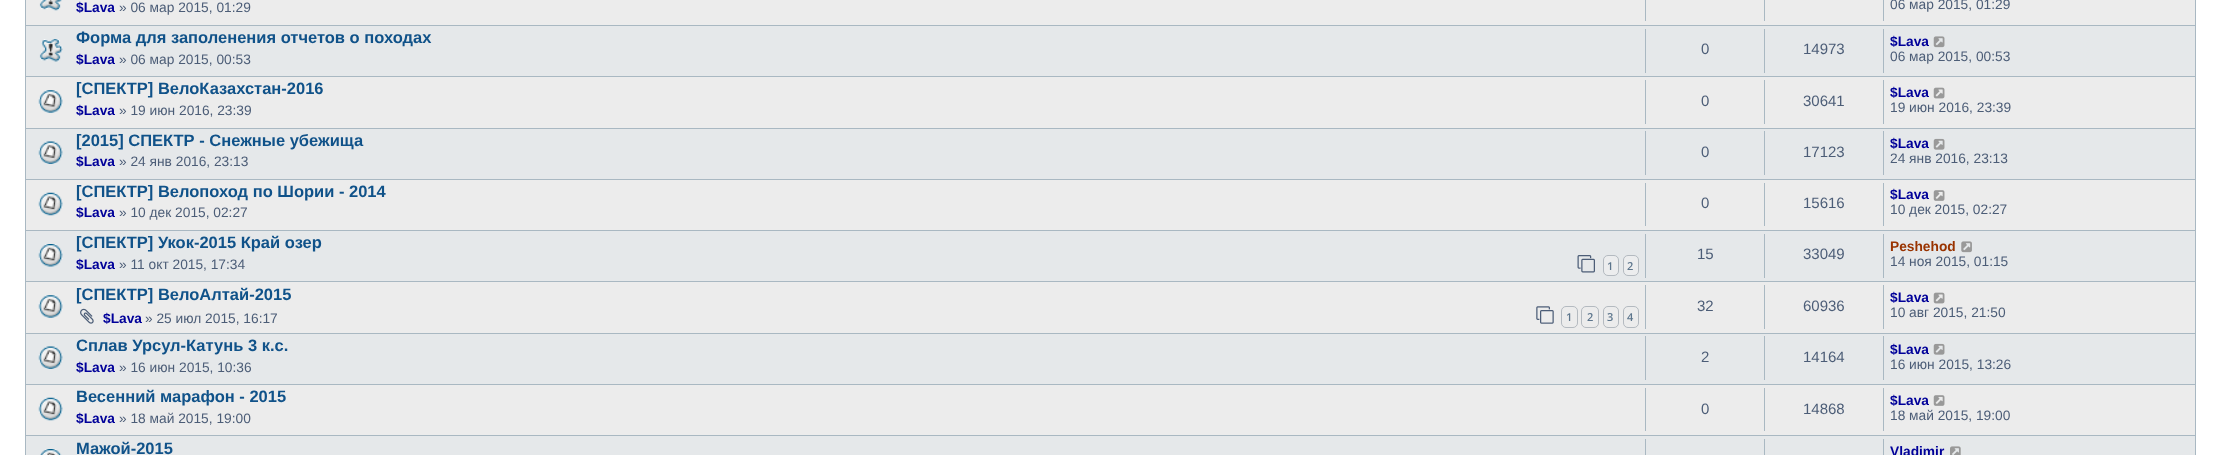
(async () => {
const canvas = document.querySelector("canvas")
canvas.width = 2221
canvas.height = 455
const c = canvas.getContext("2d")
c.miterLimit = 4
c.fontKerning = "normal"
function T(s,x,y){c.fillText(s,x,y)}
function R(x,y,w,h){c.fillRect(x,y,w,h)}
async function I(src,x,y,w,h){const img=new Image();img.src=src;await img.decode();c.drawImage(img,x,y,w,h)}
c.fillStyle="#fff"
R(0,0,2221,455)
c.fillStyle="#ececec"
R(26,0,2169,435)
c.strokeStyle="#a9b8c2"
c.strokeRect(25.5,-.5,2170,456)
await I("1.png",39,0,23,11)
c.font="bold 13.75px Liberation Sans"
c.fillStyle="#009"
T("$Lava",76,12)
c.font="13.75px Liberation Sans"
c.fillStyle="#4c5d77"
T("» 06 мар 2015, 01:29",119,12)
c.fillStyle="#a9b8c2"
R(1645,0,1,21)
R(1764,0,1,21)
R(1883,0,1,21)
c.fillStyle="#4c5d77"
T("06 мар 2015, 01:29",1890,9)
c.fillStyle="#e5e8ea"
R(26,26,2169,50)
c.fillStyle="#a9b8c2"
R(26,25,2169,1)
await I("2.png",39,39,24,23)
c.font="bold 16.5px Liberation Sans"
c.fillStyle="#105289"
T("Форма для заполенения отчетов о походах",76,43)
c.font="bold 13.75px Liberation Sans"
c.fillStyle="#009"
T("$Lava",76,64)
c.font="13.75px Liberation Sans"
c.fillStyle="#4c5d77"
T("» 06 мар 2015, 00:53",119,64)
c.fillStyle="#a9b8c2"
R(1645,29,1,44)
c.font="15px Liberation Sans"
c.fillStyle="#4c5d77"
T("0",1701,54)
c.fillStyle="#a9b8c2"
R(1764,29,1,44)
c.fillStyle="#4c5d77"
T("14973",1803,54)
c.fillStyle="#a9b8c2"
R(1883,29,1,44)
c.font="bold 13.75px Liberation Sans"
c.fillStyle="#009"
T("$Lava",1890,46)
await I("3.png",1933,36,12,12)
c.font="13.75px Liberation Sans"
c.fillStyle="#4c5d77"
T("06 мар 2015, 00:53",1890,61)
c.fillStyle="#a9b8c2"
R(26,76,2169,1)
await I("4.png",38,90,25,23)
c.font="bold 16.5px Liberation Sans"
c.fillStyle="#105289"
T("[СПЕКТР] ВелоКазахстан-2016",76,94)
c.font="bold 13.75px Liberation Sans"
c.fillStyle="#009"
T("$Lava",76,115)
c.font="13.75px Liberation Sans"
c.fillStyle="#4c5d77"
T("» 19 июн 2016, 23:39",119,115)
c.fillStyle="#a9b8c2"
R(1645,80,1,44)
c.font="15px Liberation Sans"
c.fillStyle="#4c5d77"
T("0",1701,106)
c.fillStyle="#a9b8c2"
R(1764,80,1,44)
c.fillStyle="#4c5d77"
T("30641",1803,106)
c.fillStyle="#a9b8c2"
R(1883,80,1,44)
c.font="bold 13.75px Liberation Sans"
c.fillStyle="#009"
T("$Lava",1890,97)
await I("5.png",1933,87,12,12)
c.font="13.75px Liberation Sans"
c.fillStyle="#4c5d77"
T("19 июн 2016, 23:39",1890,112)
c.fillStyle="#e5e8ea"
R(26,129,2169,50)
c.fillStyle="#a9b8c2"
R(26,128,2169,1)
await I("6.png",38,141,25,23)
c.font="bold 16.5px Liberation Sans"
c.fillStyle="#105289"
T("[2015] СПЕКТР - Снежные убежища",76,146)
c.font="bold 13.75px Liberation Sans"
c.fillStyle="#009"
T("$Lava",76,166)
c.font="13.75px Liberation Sans"
c.fillStyle="#4c5d77"
T("» 24 янв 2016, 23:13",119,166)
c.fillStyle="#a9b8c2"
R(1645,131,1,44)
c.font="15px Liberation Sans"
c.fillStyle="#4c5d77"
T("0",1701,157)
c.fillStyle="#a9b8c2"
R(1764,131,1,44)
c.fillStyle="#4c5d77"
T("17123",1803,157)
c.fillStyle="#a9b8c2"
R(1883,131,1,44)
c.font="bold 13.75px Liberation Sans"
c.fillStyle="#009"
T("$Lava",1890,148)
await I("7.png",1933,138,12,12)
c.font="13.75px Liberation Sans"
c.fillStyle="#4c5d77"
T("24 янв 2016, 23:13",1890,163)
c.fillStyle="#a9b8c2"
R(26,179,2169,1)
await I("8.png",38,192,25,24)
c.font="bold 16.5px Liberation Sans"
c.fillStyle="#105289"
T("[СПЕКТР] Велопоход по Шории - 2014",76,197)
c.font="bold 13.75px Liberation Sans"
c.fillStyle="#009"
T("$Lava",76,217)
c.font="13.75px Liberation Sans"
c.fillStyle="#4c5d77"
T("» 10 дек 2015, 02:27",119,217)
c.fillStyle="#a9b8c2"
R(1645,183,1,43)
c.font="15px Liberation Sans"
c.fillStyle="#4c5d77"
T("0",1701,208)
c.fillStyle="#a9b8c2"
R(1764,183,1,43)
c.fillStyle="#4c5d77"
T("15616",1803,208)
c.fillStyle="#a9b8c2"
R(1883,183,1,43)
c.font="bold 13.75px Liberation Sans"
c.fillStyle="#009"
T("$Lava",1890,199)
await I("9.png",1933,190,12,11)
c.font="13.75px Liberation Sans"
c.fillStyle="#4c5d77"
T("10 дек 2015, 02:27",1890,214)
c.fillStyle="#e5e8ea"
R(26,231,2169,50)
c.fillStyle="#a9b8c2"
R(26,230,2169,1)
await I("10.png",38,244,25,23)
c.font="bold 16.5px Liberation Sans"
c.fillStyle="#105289"
T("[СПЕКТР] Укок-2015 Край озер",76,248)
c.font="bold 13.75px Liberation Sans"
c.fillStyle="#009"
T("$Lava",76,269)
c.font="13.75px Liberation Sans"
c.fillStyle="#4c5d77"
T("» 11 окт 2015, 17:34",119,269)
await I("11.png",1577,255,18,18)
c.fillStyle="#ecedee"
c.beginPath()
c.roundRect(1603.5,255.5,15,20,4.5)
c.fill()
c.strokeStyle="#b4bac0"
c.stroke()
c.font="600 11px Open Sans"
c.fillStyle="#5c758c"
T("1",1607,270)
c.fillStyle="#ecedee"
c.beginPath()
c.roundRect(1623.5,255.5,15,20,4.5)
c.fill()
c.stroke()
c.fillStyle="#5c758c"
T("2",1627,270)
c.fillStyle="#a9b8c2"
R(1645,234,1,44)
c.font="15px Liberation Sans"
c.fillStyle="#4c5d77"
T("15",1697,259)
c.fillStyle="#a9b8c2"
R(1764,234,1,44)
c.fillStyle="#4c5d77"
T("33049",1803,259)
c.fillStyle="#a9b8c2"
R(1883,234,1,44)
c.font="bold 13.75px Liberation Sans"
c.fillStyle="#930"
T("Peshehod",1890,251)
await I("12.png",1961,241,11,12)
c.font="13.75px Liberation Sans"
c.fillStyle="#4c5d77"
T("14 ноя 2015, 01:15",1890,266)
c.fillStyle="#a9b8c2"
R(26,281,2169,1)
await I("13.png",38,295,25,23)
c.font="bold 16.5px Liberation Sans"
c.fillStyle="#105289"
T("[СПЕКТР] ВелоАлтай-2015",76,300)
await I("14.png",80,308,14,16)
c.font="bold 13.75px Liberation Sans"
c.fillStyle="#009"
T("$Lava",103,323)
c.font="13.75px Liberation Sans"
c.fillStyle="#4c5d77"
T("» 25 июл 2015, 16:17",145,323)
await I("15.png",1536,306,18,18)
c.beginPath()
c.roundRect(1561.5,306.5,16,21,4.5)
c.stroke()
c.font="600 11px Open Sans"
c.fillStyle="#5c758c"
T("1",1566,321)
c.beginPath()
c.roundRect(1581.5,306.5,17,21,4.5)
c.stroke()
T("2",1587,321)
c.beginPath()
c.roundRect(1603.5,306.5,15,21,4.5)
c.stroke()
T("3",1607,321)
c.beginPath()
c.roundRect(1623.5,306.5,15,21,4.5)
c.stroke()
T("4",1627,321)
c.fillStyle="#a9b8c2"
R(1645,285,1,44)
c.font="15px Liberation Sans"
c.fillStyle="#4c5d77"
T("32",1697,311)
c.fillStyle="#a9b8c2"
R(1764,285,1,44)
c.fillStyle="#4c5d77"
T("60936",1803,311)
c.fillStyle="#a9b8c2"
R(1883,285,1,44)
c.font="bold 13.75px Liberation Sans"
c.fillStyle="#009"
T("$Lava",1890,302)
await I("5.png",1933,292,12,12)
c.font="13.75px Liberation Sans"
c.fillStyle="#4c5d77"
T("10 авг 2015, 21:50",1890,317)
c.fillStyle="#e5e8ea"
R(26,334,2169,50)
c.fillStyle="#a9b8c2"
R(26,333,2169,1)
await I("16.png",38,346,25,23)
c.font="bold 16.5px Liberation Sans"
c.fillStyle="#105289"
T("Сплав Урсул-Катунь 3 к.с.",76,351)
c.font="bold 13.75px Liberation Sans"
c.fillStyle="#009"
T("$Lava",76,372)
c.font="13.75px Liberation Sans"
c.fillStyle="#4c5d77"
T("» 16 июн 2015, 10:36",119,372)
c.fillStyle="#a9b8c2"
R(1645,336,1,44)
c.font="15px Liberation Sans"
c.fillStyle="#4c5d77"
T("2",1701,362)
c.fillStyle="#a9b8c2"
R(1764,336,1,44)
c.fillStyle="#4c5d77"
T("14164",1803,362)
c.fillStyle="#a9b8c2"
R(1883,336,1,44)
c.font="bold 13.75px Liberation Sans"
c.fillStyle="#009"
T("$Lava",1890,354)
await I("7.png",1933,343,12,12)
c.font="13.75px Liberation Sans"
c.fillStyle="#4c5d77"
T("16 июн 2015, 13:26",1890,369)
c.fillStyle="#a9b8c2"
R(26,384,2169,1)
await I("8.png",38,397,25,24)
c.font="bold 16.5px Liberation Sans"
c.fillStyle="#105289"
T("Весенний марафон - 2015",76,402)
c.font="bold 13.75px Liberation Sans"
c.fillStyle="#009"
T("$Lava",76,423)
c.font="13.75px Liberation Sans"
c.fillStyle="#4c5d77"
T("» 18 май 2015, 19:00",119,423)
c.fillStyle="#a9b8c2"
R(1645,388,1,43)
c.font="15px Liberation Sans"
c.fillStyle="#4c5d77"
T("0",1701,414)
c.fillStyle="#a9b8c2"
R(1764,388,1,43)
c.fillStyle="#4c5d77"
T("14868",1803,414)
c.fillStyle="#a9b8c2"
R(1883,388,1,43)
c.font="bold 13.75px Liberation Sans"
c.fillStyle="#009"
T("$Lava",1890,405)
await I("9.png",1933,395,12,11)
c.font="13.75px Liberation Sans"
c.fillStyle="#4c5d77"
T("18 май 2015, 19:00",1890,420)
c.fillStyle="#e5e8ea"
R(26,436,2169,19)
c.fillStyle="#a9b8c2"
R(26,435,2169,1)
await I("17.png",40,449,22,6)
c.font="bold 16.5px Liberation Sans"
c.fillStyle="#105289"
T("Мажой-2015",76,454)
c.fillStyle="#a9b8c2"
R(1645,439,1,16)
R(1764,439,1,16)
R(1883,439,1,16)
c.font="bold 13.75px Liberation Sans"
c.fillStyle="#009"
T("Vladimir",1890,456)
await I("18.png",1950,446,11,9)
})()
